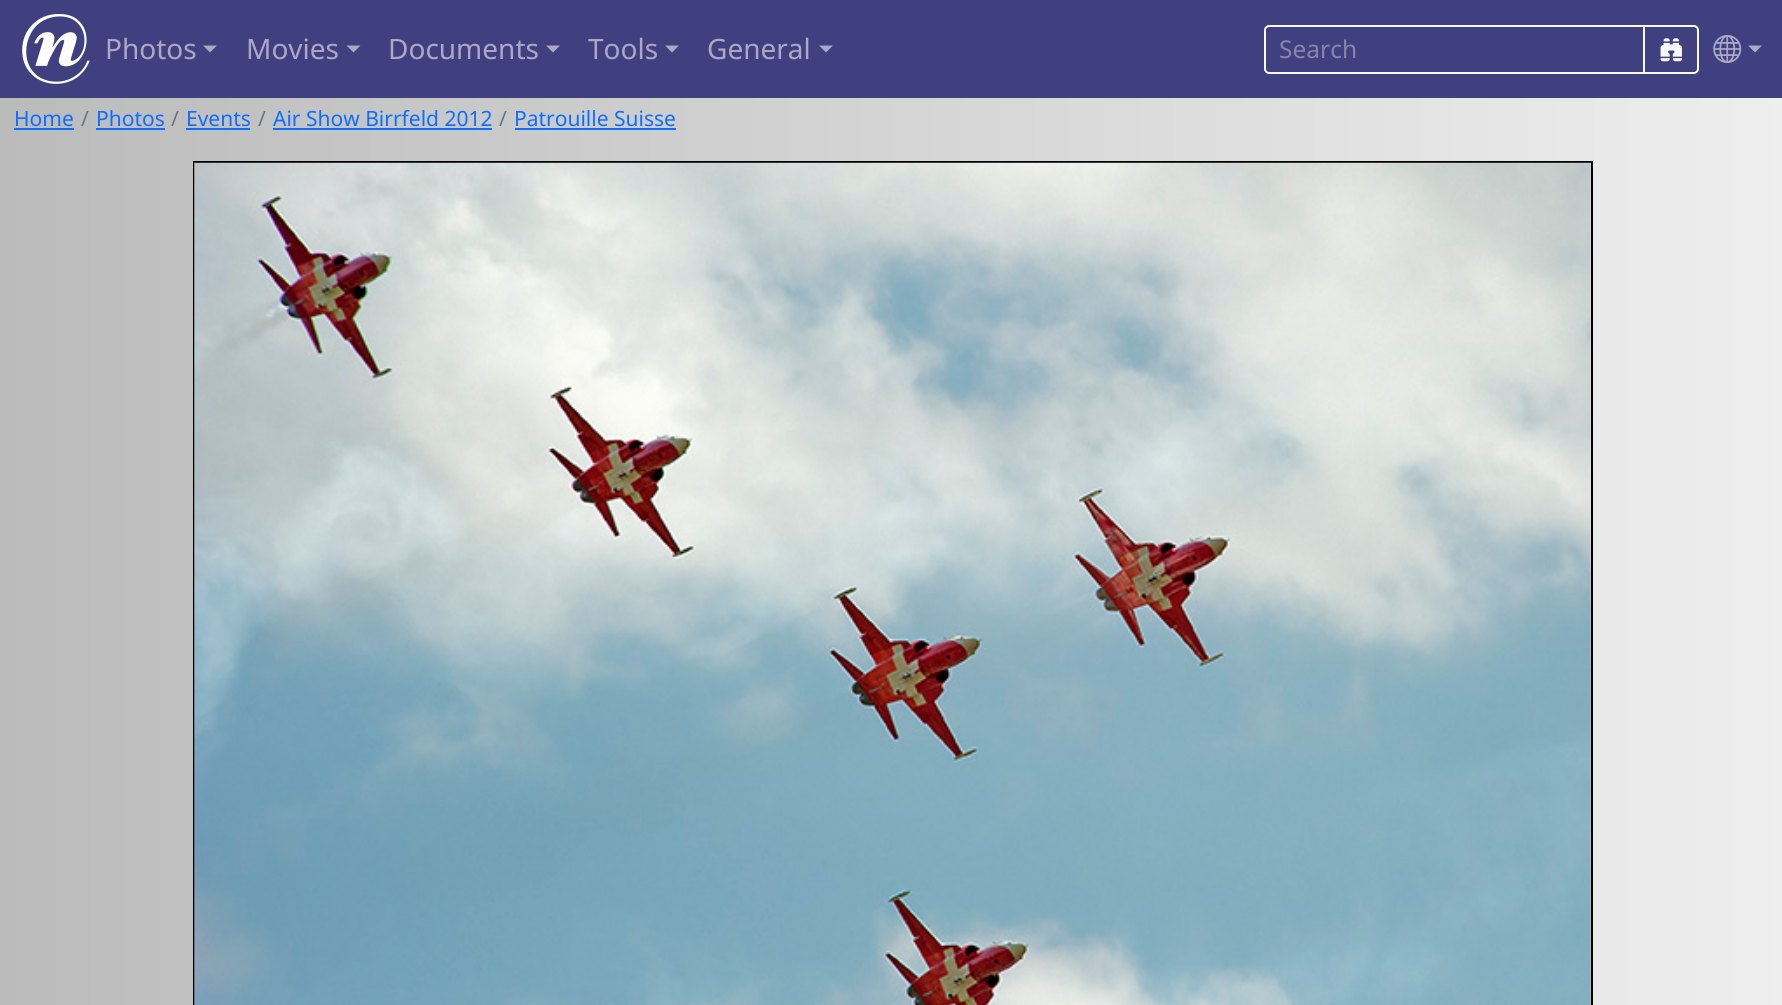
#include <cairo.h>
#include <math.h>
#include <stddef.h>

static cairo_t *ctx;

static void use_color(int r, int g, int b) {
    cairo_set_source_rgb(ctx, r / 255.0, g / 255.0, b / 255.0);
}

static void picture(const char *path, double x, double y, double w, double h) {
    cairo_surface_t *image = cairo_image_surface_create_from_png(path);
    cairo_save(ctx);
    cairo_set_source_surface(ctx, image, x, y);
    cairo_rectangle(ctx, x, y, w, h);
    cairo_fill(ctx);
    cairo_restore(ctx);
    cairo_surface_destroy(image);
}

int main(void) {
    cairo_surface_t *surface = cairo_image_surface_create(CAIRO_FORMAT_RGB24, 1782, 1005);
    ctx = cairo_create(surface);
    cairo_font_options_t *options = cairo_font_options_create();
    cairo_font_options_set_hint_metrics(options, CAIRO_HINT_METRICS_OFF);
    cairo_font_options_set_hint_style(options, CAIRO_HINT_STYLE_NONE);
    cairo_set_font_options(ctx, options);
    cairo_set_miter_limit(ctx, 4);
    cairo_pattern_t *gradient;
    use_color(255, 255, 255);
    cairo_paint(ctx);
    gradient = cairo_pattern_create_linear(0, 663, 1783, 663);
    cairo_pattern_add_color_stop_rgba(gradient, 0, 0.733, 0.733, 0.733, 1);
    cairo_pattern_add_color_stop_rgba(gradient, 1, 0.933, 0.933, 0.933, 1);
    cairo_set_source(ctx, gradient);
    cairo_pattern_destroy(gradient);
    cairo_rectangle(ctx, 0, 98, 1782, 907);
    cairo_fill(ctx);
    use_color(64, 64, 128);
    cairo_rectangle(ctx, 0, 0, 1782, 98);
    cairo_fill(ctx);
    picture("img1.png", 22, 14, 68, 70);
    cairo_select_font_face(ctx, "Noto Sans", CAIRO_FONT_SLANT_NORMAL, CAIRO_FONT_WEIGHT_NORMAL);
    cairo_set_font_size(ctx, 28);
    use_color(169, 169, 198);
    cairo_move_to(ctx, 105, 59);
    cairo_show_text(ctx, "Photos");
    cairo_new_path(ctx);
    cairo_move_to(ctx, 203, 45.5);
    cairo_line_to(ctx, 217, 45.5);
    cairo_line_to(ctx, 210, 52.5);
    cairo_close_path(ctx);
    cairo_fill(ctx);
    cairo_move_to(ctx, 246, 59);
    cairo_show_text(ctx, "Movies");
    cairo_new_path(ctx);
    cairo_move_to(ctx, 346.5, 45.5);
    cairo_line_to(ctx, 360.5, 45.5);
    cairo_line_to(ctx, 353.5, 52.5);
    cairo_close_path(ctx);
    cairo_fill(ctx);
    cairo_move_to(ctx, 388, 59);
    cairo_show_text(ctx, "Documents");
    cairo_new_path(ctx);
    cairo_move_to(ctx, 546, 45.5);
    cairo_line_to(ctx, 560, 45.5);
    cairo_line_to(ctx, 553, 52.5);
    cairo_close_path(ctx);
    cairo_fill(ctx);
    cairo_move_to(ctx, 588, 59);
    cairo_show_text(ctx, "Tools");
    cairo_new_path(ctx);
    cairo_move_to(ctx, 665, 45.5);
    cairo_line_to(ctx, 679, 45.5);
    cairo_line_to(ctx, 672, 52.5);
    cairo_close_path(ctx);
    cairo_fill(ctx);
    cairo_move_to(ctx, 707, 59);
    cairo_show_text(ctx, "General");
    cairo_new_path(ctx);
    cairo_move_to(ctx, 819, 45.5);
    cairo_line_to(ctx, 833, 45.5);
    cairo_line_to(ctx, 826, 52.5);
    cairo_close_path(ctx);
    cairo_fill(ctx);
    cairo_new_path(ctx);
    cairo_move_to(ctx, 1269, 26);
    cairo_line_to(ctx, 1644, 26);
    cairo_line_to(ctx, 1644, 73);
    cairo_line_to(ctx, 1269, 73);
    cairo_curve_to(ctx, 1267, 73, 1265, 71, 1265, 69);
    cairo_line_to(ctx, 1265, 30);
    cairo_curve_to(ctx, 1265, 28, 1267, 26, 1269, 26);
    cairo_close_path(ctx);
    use_color(248, 249, 250);
    cairo_stroke(ctx);
    cairo_set_font_size(ctx, 24.5);
    use_color(134, 134, 166);
    cairo_move_to(ctx, 1279, 58);
    cairo_show_text(ctx, "Search");
    cairo_new_path(ctx);
    cairo_move_to(ctx, 1644, 26);
    cairo_line_to(ctx, 1694, 26);
    cairo_curve_to(ctx, 1696, 26, 1698, 28, 1698, 30);
    cairo_line_to(ctx, 1698, 69);
    cairo_curve_to(ctx, 1698, 71, 1696, 73, 1694, 73);
    cairo_line_to(ctx, 1644, 73);
    cairo_close_path(ctx);
    use_color(248, 249, 250);
    cairo_stroke(ctx);
    picture("img2.png", 1660, 38, 22, 24);
    picture("img3.png", 1713, 35, 29, 28);
    use_color(169, 169, 198);
    cairo_new_path(ctx);
    cairo_move_to(ctx, 1748, 45.5);
    cairo_line_to(ctx, 1762, 45.5);
    cairo_line_to(ctx, 1755, 52.5);
    cairo_close_path(ctx);
    cairo_fill(ctx);
    cairo_set_font_size(ctx, 21);
    use_color(13, 110, 253);
    cairo_move_to(ctx, 14, 126);
    cairo_show_text(ctx, "Home");
    cairo_rectangle(ctx, 14, 128, 60, 2);
    cairo_fill(ctx);
    use_color(108, 117, 125);
    cairo_move_to(ctx, 81, 126);
    cairo_show_text(ctx, "/");
    use_color(13, 110, 253);
    cairo_move_to(ctx, 96, 126);
    cairo_show_text(ctx, "Photos");
    cairo_rectangle(ctx, 96, 128, 69, 2);
    cairo_fill(ctx);
    use_color(108, 117, 125);
    cairo_move_to(ctx, 171, 126);
    cairo_show_text(ctx, "/");
    use_color(13, 110, 253);
    cairo_move_to(ctx, 186, 126);
    cairo_show_text(ctx, "Events");
    cairo_rectangle(ctx, 186, 128, 64, 2);
    cairo_fill(ctx);
    use_color(108, 117, 125);
    cairo_move_to(ctx, 258, 126);
    cairo_show_text(ctx, "/");
    use_color(13, 110, 253);
    cairo_move_to(ctx, 273, 126);
    cairo_show_text(ctx, "Air Show Birrfeld 2012");
    cairo_rectangle(ctx, 273, 128, 219, 2);
    cairo_fill(ctx);
    use_color(108, 117, 125);
    cairo_move_to(ctx, 499, 126);
    cairo_show_text(ctx, "/");
    use_color(13, 110, 253);
    cairo_move_to(ctx, 514, 126);
    cairo_show_text(ctx, "Patrouille Suisse");
    cairo_rectangle(ctx, 515, 128, 161, 2);
    cairo_fill(ctx);
    cairo_rectangle(ctx, 194, 162, 1398, 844);
    use_color(0, 0, 0);
    cairo_stroke(ctx);
    picture("img4.png", 194, 162, 1397, 843);
    cairo_surface_write_to_png(surface, "result.png");
    cairo_font_options_destroy(options);
    cairo_destroy(ctx);
    cairo_surface_destroy(surface);
    return 0;
}
